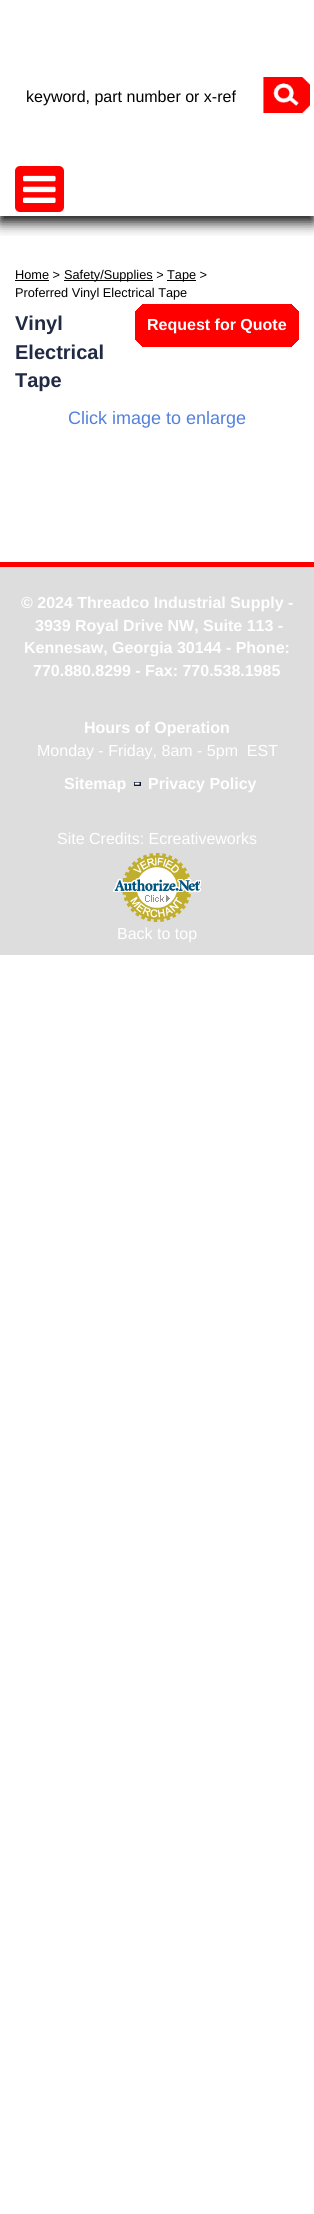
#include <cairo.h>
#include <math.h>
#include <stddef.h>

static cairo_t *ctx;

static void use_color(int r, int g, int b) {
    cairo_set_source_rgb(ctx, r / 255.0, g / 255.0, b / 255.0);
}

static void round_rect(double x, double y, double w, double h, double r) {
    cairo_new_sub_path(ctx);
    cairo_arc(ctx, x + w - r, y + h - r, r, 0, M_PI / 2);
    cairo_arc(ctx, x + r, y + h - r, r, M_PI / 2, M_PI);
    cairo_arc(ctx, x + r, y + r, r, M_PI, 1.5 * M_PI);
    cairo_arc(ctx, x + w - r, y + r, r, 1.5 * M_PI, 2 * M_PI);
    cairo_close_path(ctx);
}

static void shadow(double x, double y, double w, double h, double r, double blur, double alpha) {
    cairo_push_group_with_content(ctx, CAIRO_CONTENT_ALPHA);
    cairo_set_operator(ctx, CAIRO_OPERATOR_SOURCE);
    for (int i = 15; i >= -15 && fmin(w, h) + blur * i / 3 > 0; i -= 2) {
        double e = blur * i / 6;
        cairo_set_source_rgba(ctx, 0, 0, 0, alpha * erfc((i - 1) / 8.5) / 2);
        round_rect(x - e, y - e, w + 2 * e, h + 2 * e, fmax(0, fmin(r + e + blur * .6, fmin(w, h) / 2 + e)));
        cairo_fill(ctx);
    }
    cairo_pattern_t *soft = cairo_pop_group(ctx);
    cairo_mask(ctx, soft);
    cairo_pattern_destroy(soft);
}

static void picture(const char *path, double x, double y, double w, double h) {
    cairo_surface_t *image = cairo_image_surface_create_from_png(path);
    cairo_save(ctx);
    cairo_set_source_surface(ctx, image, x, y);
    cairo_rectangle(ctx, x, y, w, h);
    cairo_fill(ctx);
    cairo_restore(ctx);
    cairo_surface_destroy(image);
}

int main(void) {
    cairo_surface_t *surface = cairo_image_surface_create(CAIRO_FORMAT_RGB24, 314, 2214);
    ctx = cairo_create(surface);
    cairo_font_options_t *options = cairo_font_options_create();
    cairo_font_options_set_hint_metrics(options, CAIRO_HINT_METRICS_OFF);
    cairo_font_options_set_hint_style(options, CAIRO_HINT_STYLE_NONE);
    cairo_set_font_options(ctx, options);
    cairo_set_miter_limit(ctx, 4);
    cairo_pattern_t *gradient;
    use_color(255, 255, 255);
    cairo_paint(ctx);
    cairo_save(ctx);
    cairo_rectangle(ctx, 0, 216, 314, 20);
    cairo_clip(ctx);
    use_color(0, 0, 0);
    shadow(0, 6, 314, 216, 0, 7, 1);
    cairo_restore(ctx);
    picture("img1.png", 263, 77, 47, 36);
    cairo_select_font_face(ctx, "Liberation Sans", CAIRO_FONT_SLANT_NORMAL, CAIRO_FONT_WEIGHT_NORMAL);
    cairo_set_font_size(ctx, 16);
    use_color(0, 0, 0);
    cairo_move_to(ctx, 26, 102);
    cairo_show_text(ctx, "keyword, part number or x-ref");
    use_color(255, 0, 0);
    round_rect(15, 166, 49, 46, 5);
    cairo_fill(ctx);
    picture("img2.png", 23, 175, 33, 28);
    cairo_set_font_size(ctx, 12.75);
    use_color(0, 0, 0);
    cairo_move_to(ctx, 15, 279);
    cairo_show_text(ctx, "Home >");
    cairo_rectangle(ctx, 15, 280, 34, 1);
    cairo_fill(ctx);
    cairo_rectangle(ctx, 64, 280, 89, 1);
    cairo_fill(ctx);
    cairo_move_to(ctx, 64, 279);
    cairo_show_text(ctx, "Safety/Supplies >");
    cairo_rectangle(ctx, 167, 280, 29, 1);
    cairo_fill(ctx);
    cairo_move_to(ctx, 167, 279);
    cairo_show_text(ctx, "Tape >");
    cairo_move_to(ctx, 15, 297);
    cairo_show_text(ctx, "Proferred Vinyl Electrical Tape");
    cairo_select_font_face(ctx, "Liberation Sans", CAIRO_FONT_SLANT_NORMAL, CAIRO_FONT_WEIGHT_BOLD);
    cairo_set_font_size(ctx, 20);
    use_color(33, 42, 67);
    cairo_move_to(ctx, 15, 330);
    cairo_show_text(ctx, "Vinyl");
    cairo_move_to(ctx, 15, 359);
    cairo_show_text(ctx, "Electrical");
    cairo_move_to(ctx, 15, 387);
    cairo_show_text(ctx, "Tape");
    gradient = cairo_pattern_create_linear(151, 363, 205, 309);
    cairo_pattern_add_color_stop_rgba(gradient, 0.07, 1, 1, 1, 1);
    cairo_pattern_add_color_stop_rgba(gradient, 0.07, 1, 0, 0, 1);
    cairo_set_source(ctx, gradient);
    cairo_pattern_destroy(gradient);
    cairo_new_path(ctx);
    cairo_move_to(ctx, 135, 325);
    cairo_line_to(ctx, 220, 325);
    cairo_line_to(ctx, 220, 347);
    cairo_line_to(ctx, 139, 347);
    cairo_curve_to(ctx, 137, 347, 135, 345, 135, 343);
    cairo_close_path(ctx);
    cairo_fill(ctx);
    gradient = cairo_pattern_create_linear(283, 363, 229, 309);
    cairo_pattern_add_color_stop_rgba(gradient, 0.07, 1, 0, 0, 0);
    cairo_pattern_add_color_stop_rgba(gradient, 0.07, 1, 0, 0, 1);
    cairo_set_source(ctx, gradient);
    cairo_pattern_destroy(gradient);
    cairo_rectangle(ctx, 220, 326, 79, 21);
    cairo_fill(ctx);
    gradient = cairo_pattern_create_linear(283, 288, 229, 342);
    cairo_pattern_add_color_stop_rgba(gradient, 0.07, 1, 0, 0, 0);
    cairo_pattern_add_color_stop_rgba(gradient, 0.07, 1, 0, 0, 1);
    cairo_set_source(ctx, gradient);
    cairo_pattern_destroy(gradient);
    cairo_rectangle(ctx, 220, 304, 79, 22);
    cairo_fill(ctx);
    gradient = cairo_pattern_create_linear(151, 288, 205, 342);
    cairo_pattern_add_color_stop_rgba(gradient, 0.07, 1, 0, 0, 0);
    cairo_pattern_add_color_stop_rgba(gradient, 0.07, 1, 0, 0, 1);
    cairo_set_source(ctx, gradient);
    cairo_pattern_destroy(gradient);
    cairo_rectangle(ctx, 135, 304, 85, 21);
    cairo_fill(ctx);
    cairo_set_font_size(ctx, 16);
    use_color(255, 255, 255);
    cairo_move_to(ctx, 147, 330);
    cairo_show_text(ctx, "Request for Quote");
    cairo_select_font_face(ctx, "Liberation Sans", CAIRO_FONT_SLANT_NORMAL, CAIRO_FONT_WEIGHT_NORMAL);
    cairo_set_font_size(ctx, 18);
    use_color(82, 128, 221);
    cairo_move_to(ctx, 68, 424);
    cairo_show_text(ctx, "Click image to enlarge");
    use_color(221, 221, 221);
    cairo_rectangle(ctx, 0, 567, 314, 388);
    cairo_fill(ctx);
    use_color(255, 0, 0);
    cairo_rectangle(ctx, 0, 562, 314, 5);
    cairo_fill(ctx);
    cairo_select_font_face(ctx, "Liberation Sans", CAIRO_FONT_SLANT_NORMAL, CAIRO_FONT_WEIGHT_BOLD);
    cairo_set_font_size(ctx, 16);
    use_color(255, 255, 255);
    cairo_move_to(ctx, 21, 608);
    cairo_show_text(ctx, "© 2024 Threadco Industrial Supply -");
    cairo_move_to(ctx, 35, 631);
    cairo_show_text(ctx, "3939 Royal Drive NW, Suite 113 -");
    cairo_move_to(ctx, 24, 653);
    cairo_show_text(ctx, "Kennesaw, Georgia 30144 - Phone:");
    cairo_move_to(ctx, 33, 676);
    cairo_show_text(ctx, "770.880.8299 - Fax: 770.538.1985");
    cairo_move_to(ctx, 84, 733);
    cairo_show_text(ctx, "Hours of Operation");
    cairo_select_font_face(ctx, "Liberation Sans", CAIRO_FONT_SLANT_NORMAL, CAIRO_FONT_WEIGHT_NORMAL);
    cairo_move_to(ctx, 37, 756);
    cairo_show_text(ctx, "Monday - Friday, 8am - 5pm  EST");
    cairo_select_font_face(ctx, "Liberation Sans", CAIRO_FONT_SLANT_NORMAL, CAIRO_FONT_WEIGHT_BOLD);
    cairo_move_to(ctx, 64, 789);
    cairo_show_text(ctx, "Sitemap");
    picture("img3.png", 134, 782, 7, 4);
    cairo_move_to(ctx, 148, 789);
    cairo_show_text(ctx, "Privacy Policy");
    cairo_select_font_face(ctx, "Liberation Sans", CAIRO_FONT_SLANT_NORMAL, CAIRO_FONT_WEIGHT_NORMAL);
    cairo_move_to(ctx, 57, 844);
    cairo_show_text(ctx, "Site Credits: Ecreativeworks");
    picture("img4.png", 113, 853, 88, 69);
    cairo_move_to(ctx, 117, 939);
    cairo_show_text(ctx, "Back to top");
    cairo_surface_write_to_png(surface, "result.png");
    cairo_font_options_destroy(options);
    cairo_destroy(ctx);
    cairo_surface_destroy(surface);
    return 0;
}
